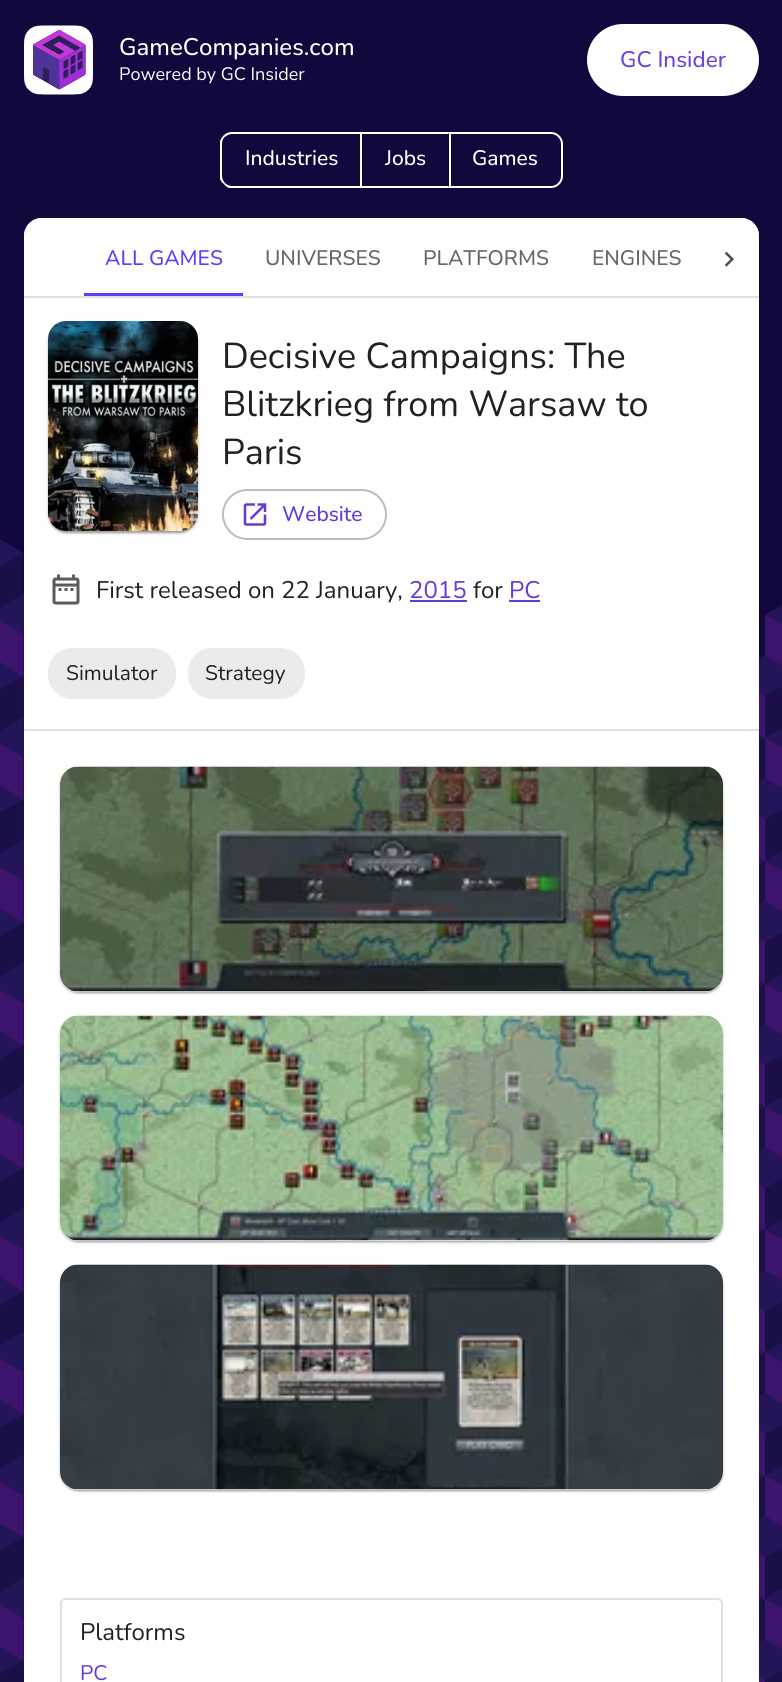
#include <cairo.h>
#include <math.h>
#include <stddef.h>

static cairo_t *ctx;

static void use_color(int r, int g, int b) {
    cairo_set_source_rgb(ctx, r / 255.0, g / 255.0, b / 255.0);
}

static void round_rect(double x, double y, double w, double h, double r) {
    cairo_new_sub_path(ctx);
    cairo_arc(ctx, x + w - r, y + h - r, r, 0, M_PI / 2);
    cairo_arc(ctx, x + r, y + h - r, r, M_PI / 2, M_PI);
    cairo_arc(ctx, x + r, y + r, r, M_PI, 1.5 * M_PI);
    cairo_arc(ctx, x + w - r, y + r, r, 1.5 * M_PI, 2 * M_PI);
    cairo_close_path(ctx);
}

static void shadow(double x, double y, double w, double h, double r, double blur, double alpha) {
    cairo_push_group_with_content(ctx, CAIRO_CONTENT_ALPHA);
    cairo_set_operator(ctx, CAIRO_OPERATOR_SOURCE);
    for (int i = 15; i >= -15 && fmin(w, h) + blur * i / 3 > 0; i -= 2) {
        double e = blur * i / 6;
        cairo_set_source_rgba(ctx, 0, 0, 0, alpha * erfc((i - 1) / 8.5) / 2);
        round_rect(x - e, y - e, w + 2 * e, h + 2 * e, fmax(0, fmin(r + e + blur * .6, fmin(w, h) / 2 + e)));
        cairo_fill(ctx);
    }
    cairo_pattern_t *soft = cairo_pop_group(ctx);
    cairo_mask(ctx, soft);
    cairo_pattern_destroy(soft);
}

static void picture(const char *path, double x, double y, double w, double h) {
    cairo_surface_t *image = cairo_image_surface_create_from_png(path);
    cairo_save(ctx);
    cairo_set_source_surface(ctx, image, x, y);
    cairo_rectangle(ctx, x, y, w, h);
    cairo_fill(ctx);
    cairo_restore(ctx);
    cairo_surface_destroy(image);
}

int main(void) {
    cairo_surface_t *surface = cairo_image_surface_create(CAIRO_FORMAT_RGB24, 782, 1682);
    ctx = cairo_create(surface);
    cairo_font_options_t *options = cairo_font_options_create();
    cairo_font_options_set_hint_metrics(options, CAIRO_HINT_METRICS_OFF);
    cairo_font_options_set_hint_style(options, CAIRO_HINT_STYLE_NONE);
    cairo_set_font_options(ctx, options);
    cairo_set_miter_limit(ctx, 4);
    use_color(255, 255, 255);
    cairo_paint(ctx);
    picture("img1.png", 0, 0, 782, 1682);
    picture("img2.png", 24, 25, 69, 70);
    cairo_select_font_face(ctx, "Nunito Medium", CAIRO_FONT_SLANT_NORMAL, CAIRO_FONT_WEIGHT_NORMAL);
    cairo_set_font_size(ctx, 24);
    use_color(255, 255, 255);
    cairo_move_to(ctx, 119, 55);
    cairo_show_text(ctx, "GameCompanies.com");
    cairo_select_font_face(ctx, "Nunito", CAIRO_FONT_SLANT_NORMAL, CAIRO_FONT_WEIGHT_NORMAL);
    cairo_set_font_size(ctx, 18);
    cairo_move_to(ctx, 119, 80);
    cairo_show_text(ctx, "Powered by GC Insider");
    round_rect(587, 24, 172, 72, 36);
    cairo_fill(ctx);
    cairo_select_font_face(ctx, "Nunito Medium", CAIRO_FONT_SLANT_NORMAL, CAIRO_FONT_WEIGHT_NORMAL);
    cairo_set_font_size(ctx, 22.5);
    use_color(107, 69, 219);
    cairo_move_to(ctx, 620, 67);
    cairo_show_text(ctx, "GC Insider");
    use_color(255, 255, 255);
    cairo_new_path(ctx);
    cairo_move_to(ctx, 232, 132);
    cairo_curve_to(ctx, 229, 132, 226, 133, 224, 135);
    cairo_line_to(ctx, 225, 137);
    cairo_curve_to(ctx, 227, 135, 230, 134, 232, 134);
    cairo_line_to(ctx, 360, 134);
    cairo_line_to(ctx, 362, 132);
    cairo_close_path(ctx);
    cairo_fill(ctx);
    cairo_new_path(ctx);
    cairo_move_to(ctx, 362, 188);
    cairo_line_to(ctx, 229, 188);
    cairo_curve_to(ctx, 227, 187, 225, 186, 224, 184);
    cairo_line_to(ctx, 225, 183);
    cairo_curve_to(ctx, 227, 185, 230, 186, 232, 186);
    cairo_line_to(ctx, 360, 186);
    cairo_close_path(ctx);
    cairo_fill(ctx);
    cairo_new_path(ctx);
    cairo_move_to(ctx, 220, 141);
    cairo_curve_to(ctx, 221, 139, 222, 137, 224, 135);
    cairo_line_to(ctx, 225, 137);
    cairo_curve_to(ctx, 223, 138, 222, 141, 222, 144);
    cairo_line_to(ctx, 222, 176);
    cairo_curve_to(ctx, 222, 178, 223, 181, 225, 183);
    cairo_line_to(ctx, 224, 184);
    cairo_curve_to(ctx, 222, 183, 221, 181, 220, 179);
    cairo_close_path(ctx);
    cairo_fill(ctx);
    cairo_set_font_size(ctx, 21);
    cairo_move_to(ctx, 245, 165);
    cairo_show_text(ctx, "Industries");
    cairo_new_path(ctx);
    cairo_move_to(ctx, 360, 132);
    cairo_line_to(ctx, 450, 132);
    cairo_line_to(ctx, 448, 134);
    cairo_line_to(ctx, 362, 134);
    cairo_close_path(ctx);
    cairo_fill(ctx);
    cairo_new_path(ctx);
    cairo_move_to(ctx, 450, 188);
    cairo_line_to(ctx, 360, 188);
    cairo_line_to(ctx, 362, 186);
    cairo_line_to(ctx, 448, 186);
    cairo_close_path(ctx);
    cairo_fill(ctx);
    cairo_rectangle(ctx, 360, 132, 2, 56);
    cairo_fill(ctx);
    cairo_move_to(ctx, 385, 165);
    cairo_show_text(ctx, "Jobs");
    cairo_new_path(ctx);
    cairo_move_to(ctx, 450, 133);
    cairo_line_to(ctx, 551, 133);
    cairo_curve_to(ctx, 557, 133, 562, 138, 562, 144);
    cairo_line_to(ctx, 562, 176);
    cairo_curve_to(ctx, 562, 182, 557, 187, 551, 187);
    cairo_line_to(ctx, 450, 187);
    cairo_close_path(ctx);
    cairo_stroke(ctx);
    cairo_move_to(ctx, 472, 165);
    cairo_show_text(ctx, "Games");
    use_color(0, 0, 0);
    shadow(24, 219, 735, 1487, 18, 2, 0.12);
    shadow(24, 219, 735, 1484, 18, 1, 0.14);
    use_color(255, 255, 255);
    round_rect(24, 218, 735, 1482, 18);
    cairo_fill(ctx);
    cairo_new_path(ctx);
    cairo_move_to(ctx, 42, 218);
    cairo_line_to(ctx, 741, 218);
    cairo_curve_to(ctx, 751, 218, 759, 226, 759, 236);
    cairo_line_to(ctx, 759, 297);
    cairo_line_to(ctx, 24, 297);
    cairo_line_to(ctx, 24, 236);
    cairo_curve_to(ctx, 24, 226, 32, 218, 42, 218);
    cairo_close_path(ctx);
    cairo_fill(ctx);
    use_color(92, 62, 255);
    cairo_move_to(ctx, 105, 265);
    cairo_show_text(ctx, "ALL GAMES");
    use_color(102, 102, 102);
    cairo_move_to(ctx, 265, 265);
    cairo_show_text(ctx, "UNIVERSES");
    cairo_move_to(ctx, 423, 265);
    cairo_show_text(ctx, "PLATFORMS");
    cairo_move_to(ctx, 592, 265);
    cairo_show_text(ctx, "ENGINES");
    use_color(92, 62, 255);
    cairo_rectangle(ctx, 84, 293, 159, 3);
    cairo_fill(ctx);
    picture("img3.png", 724, 251, 10, 16);
    use_color(224, 224, 224);
    cairo_rectangle(ctx, 24, 296, 735, 2);
    cairo_fill(ctx);
    use_color(0, 0, 0);
    shadow(48, 323, 150, 210, 18, 2, 0.12);
    shadow(48, 323, 150, 210, 18, 1, 0.14);
    shadow(50, 326, 147, 207, 17, 1, 0.2);
    picture("img4.png", 48, 321, 150, 210);
    cairo_select_font_face(ctx, "Nunito", CAIRO_FONT_SLANT_NORMAL, CAIRO_FONT_WEIGHT_NORMAL);
    cairo_set_font_size(ctx, 36);
    use_color(33, 33, 33);
    cairo_move_to(ctx, 222, 368);
    cairo_show_text(ctx, "Decisive Campaigns: The");
    cairo_move_to(ctx, 222, 416);
    cairo_show_text(ctx, "Blitzkrieg from Warsaw to");
    cairo_move_to(ctx, 222, 464);
    cairo_show_text(ctx, "Paris");
    round_rect(223, 490, 163, 49, 24.5);
    use_color(189, 189, 189);
    cairo_stroke(ctx);
    picture("img5.png", 243, 503, 24, 23);
    cairo_select_font_face(ctx, "Nunito Medium", CAIRO_FONT_SLANT_NORMAL, CAIRO_FONT_WEIGHT_NORMAL);
    cairo_set_font_size(ctx, 21);
    use_color(98, 58, 214);
    cairo_move_to(ctx, 282, 521);
    cairo_show_text(ctx, "Website");
    picture("img6.png", 52, 574, 28, 31);
    cairo_select_font_face(ctx, "Nunito", CAIRO_FONT_SLANT_NORMAL, CAIRO_FONT_WEIGHT_NORMAL);
    cairo_set_font_size(ctx, 24);
    use_color(33, 33, 33);
    cairo_move_to(ctx, 96, 598);
    cairo_show_text(ctx, "First released on 22 January,");
    use_color(98, 58, 214);
    cairo_move_to(ctx, 409, 598);
    cairo_show_text(ctx, "2015");
    cairo_rectangle(ctx, 410, 600, 57, 2);
    cairo_fill(ctx);
    use_color(33, 33, 33);
    cairo_move_to(ctx, 473, 598);
    cairo_show_text(ctx, "for");
    use_color(98, 58, 214);
    cairo_move_to(ctx, 509, 598);
    cairo_show_text(ctx, "PC");
    cairo_rectangle(ctx, 509, 600, 31, 2);
    cairo_fill(ctx);
    use_color(235, 235, 235);
    round_rect(48, 648, 128, 51, 24);
    cairo_fill(ctx);
    cairo_set_font_size(ctx, 21);
    use_color(33, 33, 33);
    cairo_move_to(ctx, 66, 680);
    cairo_show_text(ctx, "Simulator");
    use_color(235, 235, 235);
    round_rect(188, 648, 117, 51, 24);
    cairo_fill(ctx);
    use_color(33, 33, 33);
    cairo_move_to(ctx, 205, 680);
    cairo_show_text(ctx, "Strategy");
    use_color(224, 224, 224);
    cairo_rectangle(ctx, 24, 729, 735, 2);
    cairo_fill(ctx);
    use_color(0, 0, 0);
    shadow(60, 768, 663, 225, 18, 2, 0.12);
    shadow(60, 768, 663, 225, 18, 1, 0.14);
    shadow(62, 771, 660, 222, 17, 1, 0.2);
    use_color(255, 255, 255);
    round_rect(60, 767, 663, 225, 18);
    cairo_fill(ctx);
    picture("img7.png", 60, 766, 663, 226);
    use_color(0, 0, 0);
    shadow(60, 1017, 663, 225, 18, 2, 0.12);
    shadow(60, 1017, 663, 225, 18, 1, 0.14);
    shadow(62, 1020, 660, 222, 17, 1, 0.2);
    use_color(255, 255, 255);
    round_rect(60, 1016, 663, 225, 18);
    cairo_fill(ctx);
    picture("img8.png", 60, 1015, 663, 226);
    use_color(0, 0, 0);
    shadow(60, 1266, 663, 225, 18, 2, 0.12);
    shadow(60, 1266, 663, 225, 18, 1, 0.14);
    shadow(62, 1269, 660, 222, 17, 1, 0.2);
    use_color(255, 255, 255);
    round_rect(60, 1265, 663, 225, 18);
    cairo_fill(ctx);
    picture("img9.png", 60, 1264, 663, 226);
    cairo_new_path(ctx);
    cairo_move_to(ctx, 66, 1599);
    cairo_line_to(ctx, 717, 1599);
    cairo_curve_to(ctx, 720, 1599, 722, 1601, 722, 1604);
    cairo_line_to(ctx, 722, 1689);
    cairo_line_to(ctx, 61, 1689);
    cairo_line_to(ctx, 61, 1604);
    cairo_curve_to(ctx, 61, 1601, 63, 1599, 66, 1599);
    cairo_close_path(ctx);
    use_color(224, 224, 224);
    cairo_stroke(ctx);
    cairo_set_font_size(ctx, 24);
    use_color(33, 33, 33);
    cairo_move_to(ctx, 80, 1640);
    cairo_show_text(ctx, "Platforms");
    cairo_set_font_size(ctx, 21);
    use_color(98, 58, 214);
    cairo_move_to(ctx, 80, 1680);
    cairo_show_text(ctx, "PC");
    cairo_surface_write_to_png(surface, "result.png");
    cairo_font_options_destroy(options);
    cairo_destroy(ctx);
    cairo_surface_destroy(surface);
    return 0;
}
